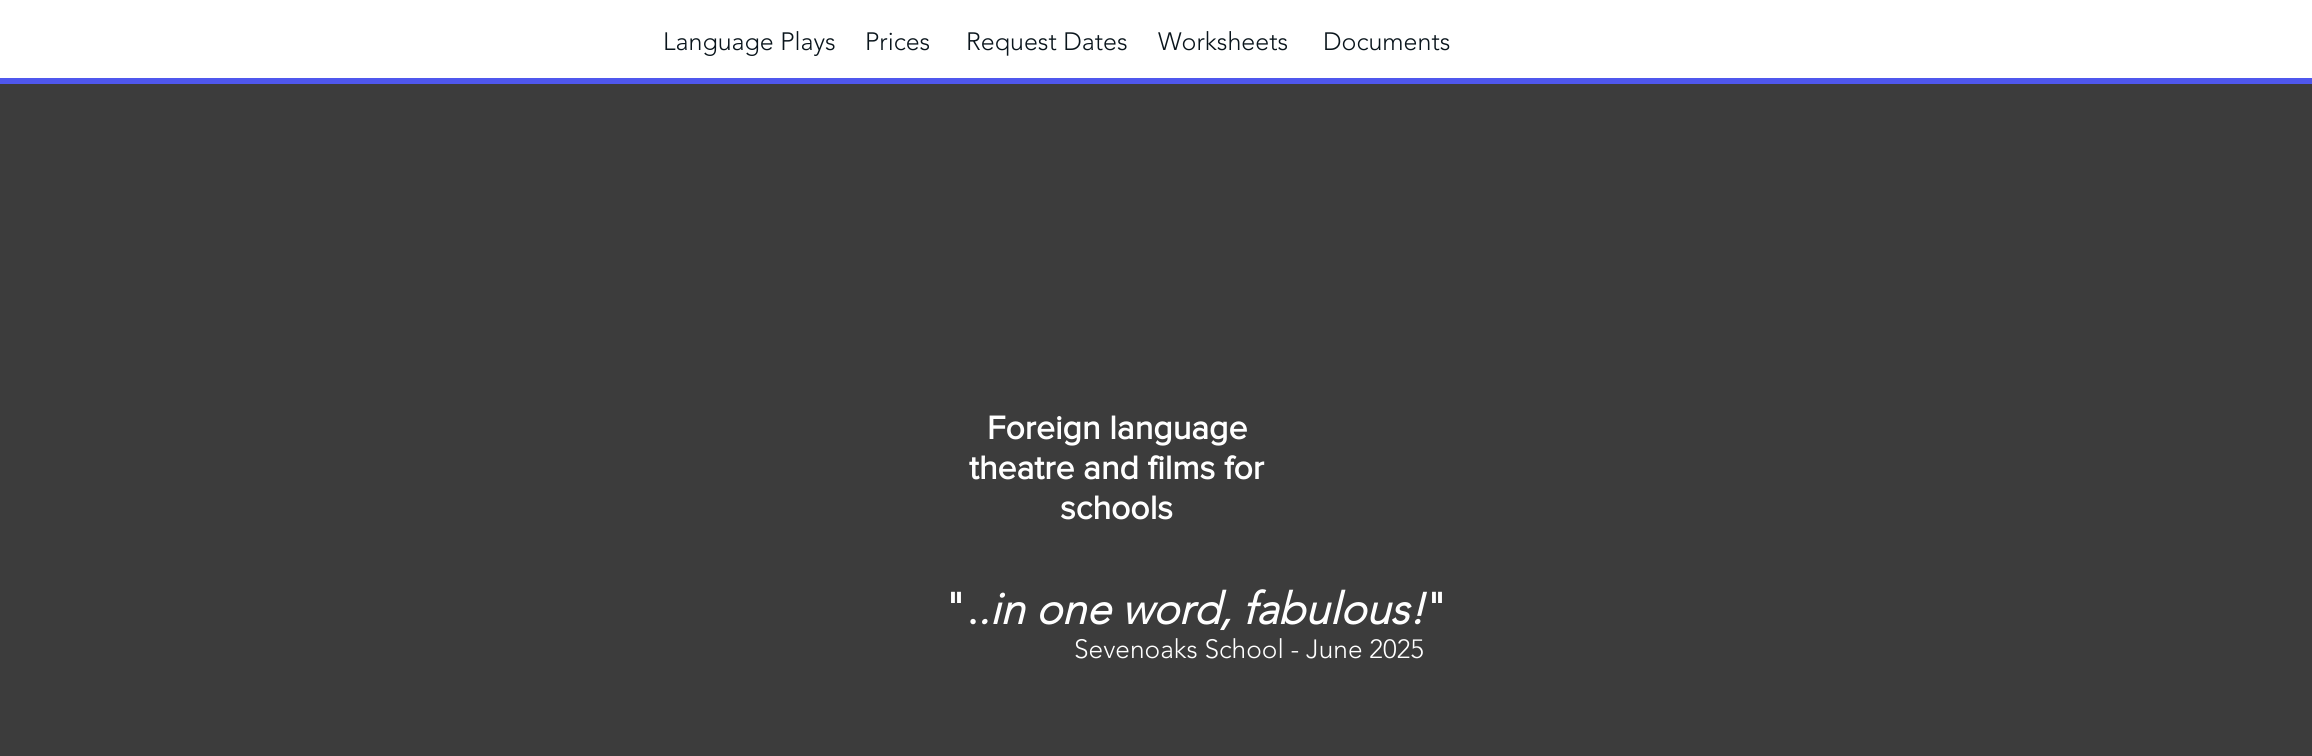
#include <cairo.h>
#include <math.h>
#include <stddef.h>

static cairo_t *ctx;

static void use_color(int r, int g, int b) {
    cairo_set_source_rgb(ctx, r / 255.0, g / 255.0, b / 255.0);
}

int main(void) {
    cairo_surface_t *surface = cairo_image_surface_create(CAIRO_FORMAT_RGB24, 2312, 756);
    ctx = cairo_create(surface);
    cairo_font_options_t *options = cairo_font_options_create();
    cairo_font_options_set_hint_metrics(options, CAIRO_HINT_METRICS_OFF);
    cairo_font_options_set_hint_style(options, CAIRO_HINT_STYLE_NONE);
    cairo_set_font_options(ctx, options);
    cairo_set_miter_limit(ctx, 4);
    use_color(255, 255, 255);
    cairo_paint(ctx);
    cairo_select_font_face(ctx, "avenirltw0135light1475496 Light", CAIRO_FONT_SLANT_NORMAL, CAIRO_FONT_WEIGHT_NORMAL);
    cairo_set_font_size(ctx, 25);
    use_color(10, 21, 28);
    cairo_move_to(ctx, 663, 50);
    cairo_show_text(ctx, "Language Plays");
    cairo_move_to(ctx, 865, 50);
    cairo_show_text(ctx, "Prices");
    cairo_move_to(ctx, 966, 50);
    cairo_show_text(ctx, "Request Dates");
    cairo_move_to(ctx, 1158, 50);
    cairo_show_text(ctx, "Worksheets");
    cairo_move_to(ctx, 1323, 50);
    cairo_show_text(ctx, "Documents");
    use_color(79, 87, 237);
    cairo_rectangle(ctx, 0, 78, 2312, 6);
    cairo_fill(ctx);
    use_color(60, 60, 60);
    cairo_rectangle(ctx, 0, 84, 2312, 672);
    cairo_fill(ctx);
    cairo_select_font_face(ctx, "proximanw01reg", CAIRO_FONT_SLANT_NORMAL, CAIRO_FONT_WEIGHT_BOLD);
    cairo_set_font_size(ctx, 33.75);
    use_color(255, 255, 255);
    cairo_move_to(ctx, 987, 439);
    cairo_show_text(ctx, "Foreign language");
    cairo_move_to(ctx, 969, 479);
    cairo_show_text(ctx, "theatre and films for");
    cairo_move_to(ctx, 1060, 519);
    cairo_show_text(ctx, "schools");
    cairo_select_font_face(ctx, "avenirltw0135light1475496", CAIRO_FONT_SLANT_NORMAL, CAIRO_FONT_WEIGHT_BOLD);
    cairo_set_font_size(ctx, 43.75);
    cairo_move_to(ctx, 944, 624);
    cairo_show_text(ctx, "\".");
    cairo_select_font_face(ctx, "avenirltw0135light1475496", CAIRO_FONT_SLANT_ITALIC, CAIRO_FONT_WEIGHT_BOLD);
    cairo_move_to(ctx, 978, 624);
    cairo_show_text(ctx, ".in one word, fabulous!");
    cairo_select_font_face(ctx, "avenirltw0135light1475496", CAIRO_FONT_SLANT_NORMAL, CAIRO_FONT_WEIGHT_BOLD);
    cairo_move_to(ctx, 1425, 624);
    cairo_show_text(ctx, "\"");
    cairo_select_font_face(ctx, "avenirltw0135light1475496 Light", CAIRO_FONT_SLANT_NORMAL, CAIRO_FONT_WEIGHT_NORMAL);
    cairo_set_font_size(ctx, 26.25);
    cairo_move_to(ctx, 1074, 658);
    cairo_show_text(ctx, "Sevenoaks School - June 2025");
    cairo_surface_write_to_png(surface, "result.png");
    cairo_font_options_destroy(options);
    cairo_destroy(ctx);
    cairo_surface_destroy(surface);
    return 0;
}
